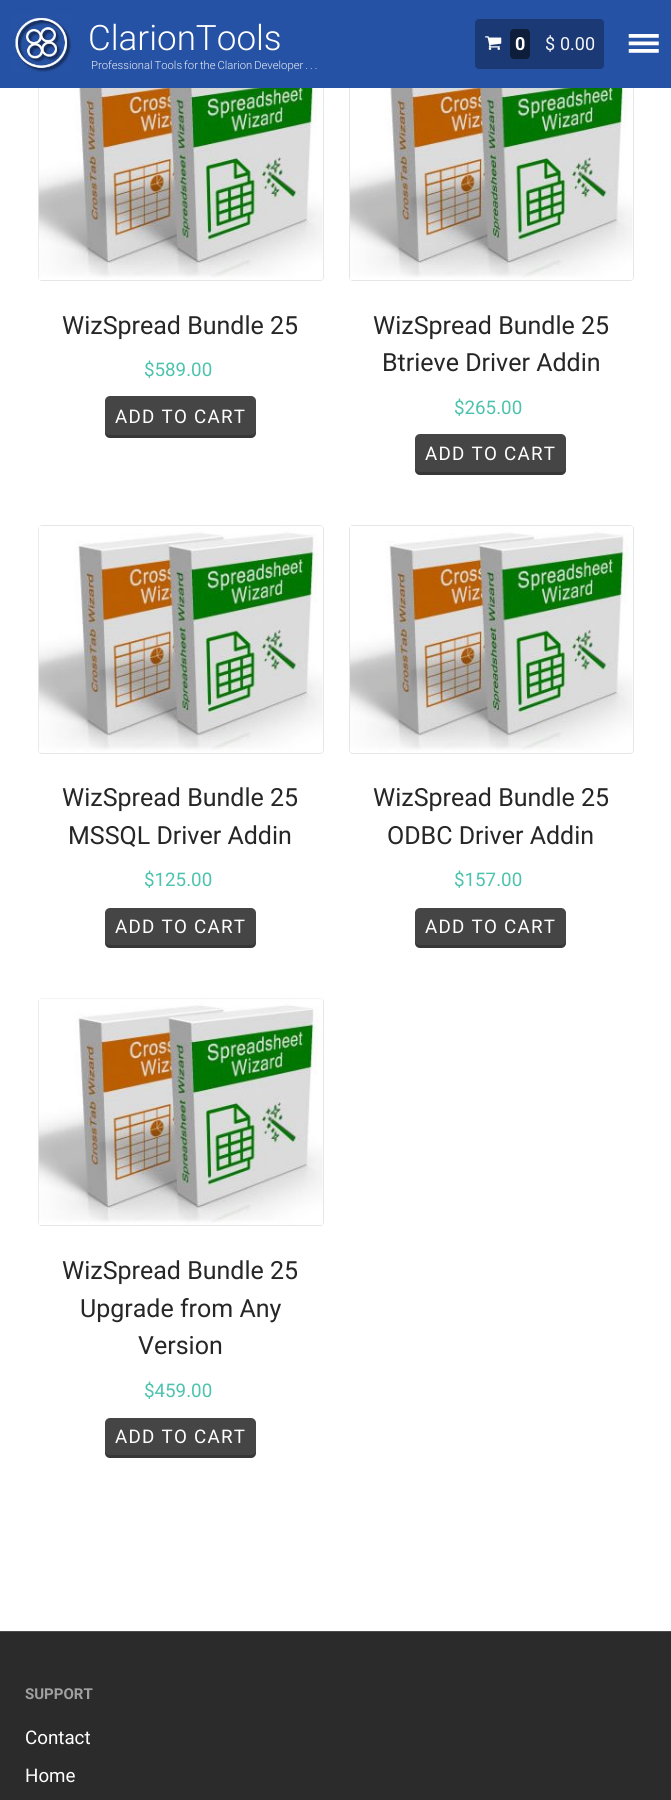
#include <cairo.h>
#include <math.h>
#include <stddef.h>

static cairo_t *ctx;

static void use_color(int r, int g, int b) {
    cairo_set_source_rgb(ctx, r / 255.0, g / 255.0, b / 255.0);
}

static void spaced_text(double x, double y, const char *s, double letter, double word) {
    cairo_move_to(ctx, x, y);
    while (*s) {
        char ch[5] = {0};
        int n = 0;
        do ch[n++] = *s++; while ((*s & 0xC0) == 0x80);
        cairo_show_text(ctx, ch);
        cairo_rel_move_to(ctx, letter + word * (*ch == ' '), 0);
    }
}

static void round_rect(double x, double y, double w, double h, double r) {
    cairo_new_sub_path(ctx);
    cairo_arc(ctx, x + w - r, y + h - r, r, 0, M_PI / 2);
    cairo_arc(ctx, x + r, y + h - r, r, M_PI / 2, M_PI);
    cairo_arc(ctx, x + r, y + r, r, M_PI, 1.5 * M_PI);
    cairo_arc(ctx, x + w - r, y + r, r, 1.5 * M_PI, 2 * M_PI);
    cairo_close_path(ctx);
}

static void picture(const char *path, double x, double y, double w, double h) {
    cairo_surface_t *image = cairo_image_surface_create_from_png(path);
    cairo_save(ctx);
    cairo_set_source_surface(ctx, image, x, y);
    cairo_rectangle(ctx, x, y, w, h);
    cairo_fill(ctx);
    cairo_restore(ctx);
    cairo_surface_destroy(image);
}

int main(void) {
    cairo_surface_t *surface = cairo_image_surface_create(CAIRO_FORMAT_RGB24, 671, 1800);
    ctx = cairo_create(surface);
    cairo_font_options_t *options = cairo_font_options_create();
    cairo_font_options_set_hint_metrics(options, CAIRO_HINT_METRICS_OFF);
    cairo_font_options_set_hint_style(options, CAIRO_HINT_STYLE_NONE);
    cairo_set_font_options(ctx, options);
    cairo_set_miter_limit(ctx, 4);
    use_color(255, 255, 255);
    cairo_paint(ctx);
    round_rect(38.5, 53.5, 285, 227, 3.5);
    use_color(230, 230, 230);
    cairo_set_line_width(ctx, 1);
    cairo_stroke(ctx);
    round_rect(349.5, 53.5, 284, 227, 3.5);
    cairo_stroke(ctx);
    use_color(38, 82, 165);
    cairo_rectangle(ctx, 0, 0, 671, 88);
    cairo_fill(ctx);
    picture("img1.png", 12, 14, 60, 58);
    cairo_select_font_face(ctx, "Roboto Light", CAIRO_FONT_SLANT_NORMAL, CAIRO_FONT_WEIGHT_NORMAL);
    cairo_set_font_size(ctx, 35);
    use_color(255, 255, 255);
    cairo_move_to(ctx, 88, 50);
    cairo_show_text(ctx, "ClarionTools");
    cairo_set_font_size(ctx, 11.25);
    use_color(233, 238, 246);
    spaced_text(91, 69, "Professional Tools for the Clarion Developer . . .", 0, -0.75);
    use_color(27, 57, 116);
    round_rect(475, 19, 129, 50, 4);
    cairo_fill(ctx);
    picture("img2.png", 485, 36, 17, 14);
    use_color(14, 29, 58);
    round_rect(510, 29, 20, 30, 4);
    cairo_fill(ctx);
    cairo_select_font_face(ctx, "Roboto", CAIRO_FONT_SLANT_NORMAL, CAIRO_FONT_WEIGHT_BOLD);
    cairo_set_font_size(ctx, 18);
    use_color(255, 255, 255);
    cairo_move_to(ctx, 515, 50);
    cairo_show_text(ctx, "0");
    cairo_select_font_face(ctx, "Roboto", CAIRO_FONT_SLANT_NORMAL, CAIRO_FONT_WEIGHT_NORMAL);
    use_color(244, 245, 248);
    cairo_move_to(ctx, 545, 50);
    cairo_show_text(ctx, "$");
    cairo_move_to(ctx, 560, 50);
    cairo_show_text(ctx, "0.00");
    picture("img3.png", 628, 34, 31, 19);
    picture("img4.png", 38, 88, 285, 192);
    cairo_set_font_size(ctx, 25);
    use_color(38, 38, 38);
    cairo_move_to(ctx, 62, 334);
    cairo_show_text(ctx, "WizSpread Bundle 25");
    cairo_set_font_size(ctx, 18.75);
    use_color(77, 195, 174);
    cairo_move_to(ctx, 144, 376);
    cairo_show_text(ctx, "$589.00");
    use_color(69, 69, 69);
    round_rect(105, 396, 151, 42, 5);
    cairo_fill(ctx);
    cairo_set_source_rgba(ctx, 0, 0, 0, 0.2);
    cairo_new_path(ctx);
    cairo_move_to(ctx, 105, 430);
    cairo_line_to(ctx, 105, 433);
    cairo_curve_to(ctx, 105, 436, 107, 438, 110, 438);
    cairo_line_to(ctx, 251, 438);
    cairo_curve_to(ctx, 254, 438, 256, 436, 256, 433);
    cairo_line_to(ctx, 256, 430);
    cairo_curve_to(ctx, 256, 433, 254, 435, 251, 435);
    cairo_line_to(ctx, 110, 435);
    cairo_curve_to(ctx, 107, 435, 105, 433, 105, 430);
    cairo_close_path(ctx);
    cairo_fill(ctx);
    use_color(255, 255, 255);
    spaced_text(115, 423, "ADD TO CART", 1.25, 0);
    picture("img5.png", 350, 88, 283, 192);
    cairo_set_font_size(ctx, 25);
    use_color(38, 38, 38);
    cairo_move_to(ctx, 373, 334);
    cairo_show_text(ctx, "WizSpread Bundle 25");
    cairo_move_to(ctx, 382, 371);
    cairo_show_text(ctx, "Btrieve Driver Addin");
    cairo_set_font_size(ctx, 18.75);
    use_color(77, 195, 174);
    cairo_move_to(ctx, 454, 414);
    cairo_show_text(ctx, "$265.00");
    use_color(69, 69, 69);
    round_rect(415, 434, 151, 41, 5);
    cairo_fill(ctx);
    cairo_set_source_rgba(ctx, 0, 0, 0, 0.2);
    cairo_new_path(ctx);
    cairo_move_to(ctx, 415, 468);
    cairo_line_to(ctx, 415, 470);
    cairo_curve_to(ctx, 415, 473, 417, 475, 420, 475);
    cairo_line_to(ctx, 561, 475);
    cairo_curve_to(ctx, 564, 475, 566, 473, 566, 470);
    cairo_line_to(ctx, 566, 468);
    cairo_curve_to(ctx, 566, 470, 564, 472, 561, 472);
    cairo_line_to(ctx, 420, 472);
    cairo_curve_to(ctx, 417, 472, 415, 470, 415, 468);
    cairo_close_path(ctx);
    cairo_fill(ctx);
    use_color(255, 255, 255);
    spaced_text(425, 460, "ADD TO CART", 1.25, 0);
    round_rect(38.5, 525.5, 285, 228, 3.5);
    use_color(230, 230, 230);
    cairo_stroke(ctx);
    picture("img6.png", 38, 526, 285, 227);
    cairo_set_font_size(ctx, 25);
    use_color(38, 38, 38);
    cairo_move_to(ctx, 62, 806);
    cairo_show_text(ctx, "WizSpread Bundle 25");
    cairo_move_to(ctx, 68, 844);
    cairo_show_text(ctx, "MSSQL Driver Addin");
    cairo_set_font_size(ctx, 18.75);
    use_color(77, 195, 174);
    cairo_move_to(ctx, 144, 886);
    cairo_show_text(ctx, "$125.00");
    use_color(69, 69, 69);
    round_rect(105, 908, 151, 40, 5);
    cairo_fill(ctx);
    cairo_set_source_rgba(ctx, 0, 0, 0, 0.2);
    cairo_new_path(ctx);
    cairo_move_to(ctx, 105, 940);
    cairo_line_to(ctx, 105, 943);
    cairo_curve_to(ctx, 105, 946, 107, 948, 110, 948);
    cairo_line_to(ctx, 251, 948);
    cairo_curve_to(ctx, 254, 948, 256, 946, 256, 943);
    cairo_line_to(ctx, 256, 940);
    cairo_curve_to(ctx, 256, 943, 254, 945, 251, 945);
    cairo_line_to(ctx, 110, 945);
    cairo_curve_to(ctx, 107, 945, 105, 943, 105, 940);
    cairo_close_path(ctx);
    cairo_fill(ctx);
    use_color(255, 255, 255);
    spaced_text(115, 933, "ADD TO CART", 1.25, 0);
    round_rect(349.5, 525.5, 284, 228, 3.5);
    use_color(230, 230, 230);
    cairo_stroke(ctx);
    picture("img7.png", 350, 526, 283, 227);
    cairo_set_font_size(ctx, 25);
    use_color(38, 38, 38);
    cairo_move_to(ctx, 373, 806);
    cairo_show_text(ctx, "WizSpread Bundle 25");
    cairo_move_to(ctx, 387, 844);
    cairo_show_text(ctx, "ODBC Driver Addin");
    cairo_set_font_size(ctx, 18.75);
    use_color(77, 195, 174);
    cairo_move_to(ctx, 454, 886);
    cairo_show_text(ctx, "$157.00");
    use_color(69, 69, 69);
    round_rect(415, 908, 151, 40, 5);
    cairo_fill(ctx);
    cairo_set_source_rgba(ctx, 0, 0, 0, 0.2);
    cairo_new_path(ctx);
    cairo_move_to(ctx, 415, 940);
    cairo_line_to(ctx, 415, 943);
    cairo_curve_to(ctx, 415, 946, 417, 948, 420, 948);
    cairo_line_to(ctx, 561, 948);
    cairo_curve_to(ctx, 564, 948, 566, 946, 566, 943);
    cairo_line_to(ctx, 566, 940);
    cairo_curve_to(ctx, 566, 943, 564, 945, 561, 945);
    cairo_line_to(ctx, 420, 945);
    cairo_curve_to(ctx, 417, 945, 415, 943, 415, 940);
    cairo_close_path(ctx);
    cairo_fill(ctx);
    use_color(255, 255, 255);
    spaced_text(425, 933, "ADD TO CART", 1.25, 0);
    round_rect(38.5, 998.5, 285, 227, 3.5);
    use_color(230, 230, 230);
    cairo_stroke(ctx);
    picture("img8.png", 38, 998, 285, 227);
    cairo_set_font_size(ctx, 25);
    use_color(38, 38, 38);
    cairo_move_to(ctx, 62, 1279);
    cairo_show_text(ctx, "WizSpread Bundle 25");
    cairo_move_to(ctx, 80, 1317);
    cairo_show_text(ctx, "Upgrade from Any");
    cairo_move_to(ctx, 138, 1354);
    cairo_show_text(ctx, "Version");
    cairo_set_font_size(ctx, 18.75);
    use_color(77, 195, 174);
    cairo_move_to(ctx, 144, 1397);
    cairo_show_text(ctx, "$459.00");
    use_color(69, 69, 69);
    round_rect(105, 1418, 151, 40, 5);
    cairo_fill(ctx);
    cairo_set_source_rgba(ctx, 0, 0, 0, 0.2);
    cairo_new_path(ctx);
    cairo_move_to(ctx, 105, 1450);
    cairo_line_to(ctx, 105, 1453);
    cairo_curve_to(ctx, 105, 1456, 107, 1458, 110, 1458);
    cairo_line_to(ctx, 251, 1458);
    cairo_curve_to(ctx, 254, 1458, 256, 1456, 256, 1453);
    cairo_line_to(ctx, 256, 1450);
    cairo_curve_to(ctx, 256, 1453, 254, 1455, 251, 1455);
    cairo_line_to(ctx, 110, 1455);
    cairo_curve_to(ctx, 107, 1455, 105, 1453, 105, 1450);
    cairo_close_path(ctx);
    cairo_fill(ctx);
    use_color(255, 255, 255);
    spaced_text(115, 1443, "ADD TO CART", 1.25, 0);
    use_color(43, 43, 43);
    cairo_rectangle(ctx, 0, 1632, 671, 168);
    cairo_fill(ctx);
    use_color(75, 75, 75);
    cairo_rectangle(ctx, 0, 1631, 671, 1);
    cairo_fill(ctx);
    cairo_select_font_face(ctx, "Roboto", CAIRO_FONT_SLANT_NORMAL, CAIRO_FONT_WEIGHT_BOLD);
    cairo_set_font_size(ctx, 15);
    use_color(160, 160, 160);
    cairo_move_to(ctx, 25, 1699);
    cairo_show_text(ctx, "SUPPORT");
    cairo_select_font_face(ctx, "Roboto", CAIRO_FONT_SLANT_NORMAL, CAIRO_FONT_WEIGHT_NORMAL);
    cairo_set_font_size(ctx, 18.75);
    use_color(255, 255, 255);
    cairo_move_to(ctx, 25, 1744);
    cairo_show_text(ctx, "Contact");
    cairo_move_to(ctx, 25, 1782);
    cairo_show_text(ctx, "Home");
    cairo_surface_write_to_png(surface, "result.png");
    cairo_font_options_destroy(options);
    cairo_destroy(ctx);
    cairo_surface_destroy(surface);
    return 0;
}
